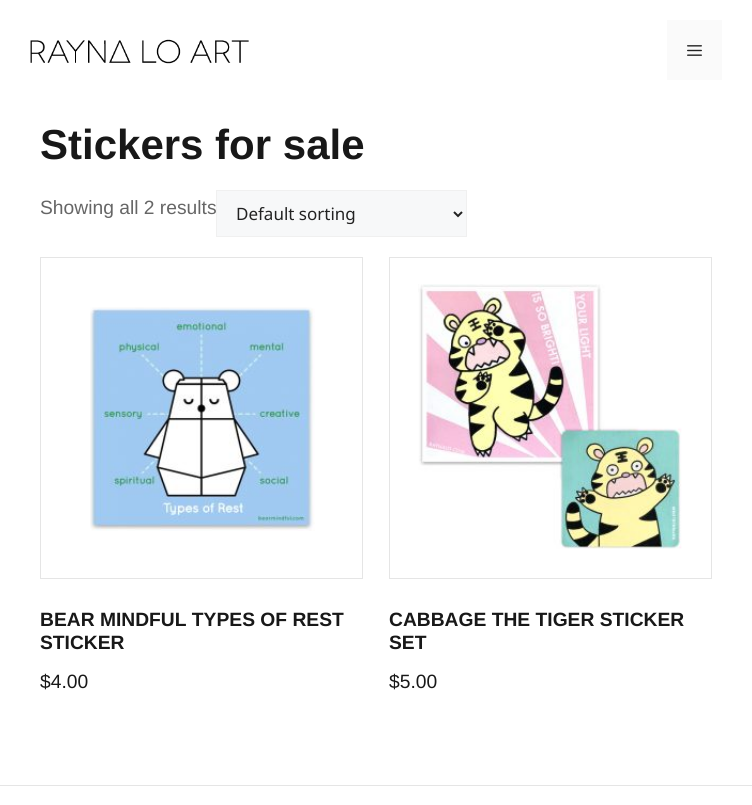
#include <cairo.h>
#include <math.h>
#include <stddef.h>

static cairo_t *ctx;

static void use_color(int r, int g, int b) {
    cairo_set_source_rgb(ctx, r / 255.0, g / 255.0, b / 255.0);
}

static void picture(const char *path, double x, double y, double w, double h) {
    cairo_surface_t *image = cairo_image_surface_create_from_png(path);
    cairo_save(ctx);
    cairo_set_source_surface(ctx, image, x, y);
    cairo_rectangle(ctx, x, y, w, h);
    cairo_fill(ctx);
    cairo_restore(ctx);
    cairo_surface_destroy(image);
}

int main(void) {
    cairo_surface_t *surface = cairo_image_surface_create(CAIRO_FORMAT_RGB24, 752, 805);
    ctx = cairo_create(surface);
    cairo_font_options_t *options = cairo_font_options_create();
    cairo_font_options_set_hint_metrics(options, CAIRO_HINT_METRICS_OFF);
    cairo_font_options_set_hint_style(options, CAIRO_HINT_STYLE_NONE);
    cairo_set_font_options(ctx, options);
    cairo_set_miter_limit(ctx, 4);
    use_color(255, 255, 255);
    cairo_paint(ctx);
    picture("img1.png", 30, 39, 219, 25);
    use_color(250, 250, 250);
    cairo_rectangle(ctx, 667, 20, 55, 60);
    cairo_fill(ctx);
    picture("img2.png", 687, 45, 15, 11);
    cairo_select_font_face(ctx, "Liberation Sans", CAIRO_FONT_SLANT_NORMAL, CAIRO_FONT_WEIGHT_BOLD);
    cairo_set_font_size(ctx, 42);
    use_color(24, 24, 24);
    cairo_move_to(ctx, 40, 159);
    cairo_show_text(ctx, "Stickers for sale");
    cairo_select_font_face(ctx, "Liberation Sans", CAIRO_FONT_SLANT_NORMAL, CAIRO_FONT_WEIGHT_NORMAL);
    cairo_set_font_size(ctx, 19.25);
    use_color(102, 102, 102);
    cairo_move_to(ctx, 40, 214);
    cairo_show_text(ctx, "Showing all 2 results");
    use_color(247, 248, 249);
    cairo_rectangle(ctx, 216.5, 190.5, 250, 46);
    cairo_fill_preserve(ctx);
    use_color(240, 240, 240);
    cairo_set_line_width(ctx, 1);
    cairo_stroke(ctx);
    cairo_new_path(ctx);
    cairo_move_to(ctx, 454, 212);
    cairo_line_to(ctx, 458, 216);
    cairo_line_to(ctx, 462, 212);
    use_color(34, 34, 34);
    cairo_set_line_width(ctx, 2);
    cairo_stroke(ctx);
    cairo_select_font_face(ctx, "Noto Sans", CAIRO_FONT_SLANT_NORMAL, CAIRO_FONT_WEIGHT_NORMAL);
    cairo_set_font_size(ctx, 17);
    cairo_move_to(ctx, 236, 220);
    cairo_show_text(ctx, "Default sorting");
    cairo_rectangle(ctx, 40.5, 257.5, 322, 321);
    use_color(229, 229, 229);
    cairo_set_line_width(ctx, 1);
    cairo_stroke(ctx);
    picture("img3.png", 90, 307, 225, 224);
    cairo_select_font_face(ctx, "Liberation Sans", CAIRO_FONT_SLANT_NORMAL, CAIRO_FONT_WEIGHT_BOLD);
    cairo_set_font_size(ctx, 19.25);
    use_color(24, 24, 24);
    cairo_move_to(ctx, 40, 626);
    cairo_show_text(ctx, "BEAR MINDFUL TYPES OF REST");
    cairo_move_to(ctx, 40, 649);
    cairo_show_text(ctx, "STICKER");
    cairo_select_font_face(ctx, "Liberation Sans", CAIRO_FONT_SLANT_NORMAL, CAIRO_FONT_WEIGHT_NORMAL);
    cairo_move_to(ctx, 40, 688);
    cairo_show_text(ctx, "$4.00");
    cairo_rectangle(ctx, 389.5, 257.5, 322, 321);
    use_color(229, 229, 229);
    cairo_stroke(ctx);
    picture("img4.png", 418, 284, 264, 265);
    cairo_select_font_face(ctx, "Liberation Sans", CAIRO_FONT_SLANT_NORMAL, CAIRO_FONT_WEIGHT_BOLD);
    use_color(24, 24, 24);
    cairo_move_to(ctx, 389, 626);
    cairo_show_text(ctx, "CABBAGE THE TIGER STICKER");
    cairo_move_to(ctx, 389, 649);
    cairo_show_text(ctx, "SET");
    cairo_select_font_face(ctx, "Liberation Sans", CAIRO_FONT_SLANT_NORMAL, CAIRO_FONT_WEIGHT_NORMAL);
    cairo_move_to(ctx, 389, 688);
    cairo_show_text(ctx, "$5.00");
    use_color(229, 229, 229);
    cairo_rectangle(ctx, 0, 785, 752, 1);
    cairo_fill(ctx);
    cairo_surface_write_to_png(surface, "result.png");
    cairo_font_options_destroy(options);
    cairo_destroy(ctx);
    cairo_surface_destroy(surface);
    return 0;
}
